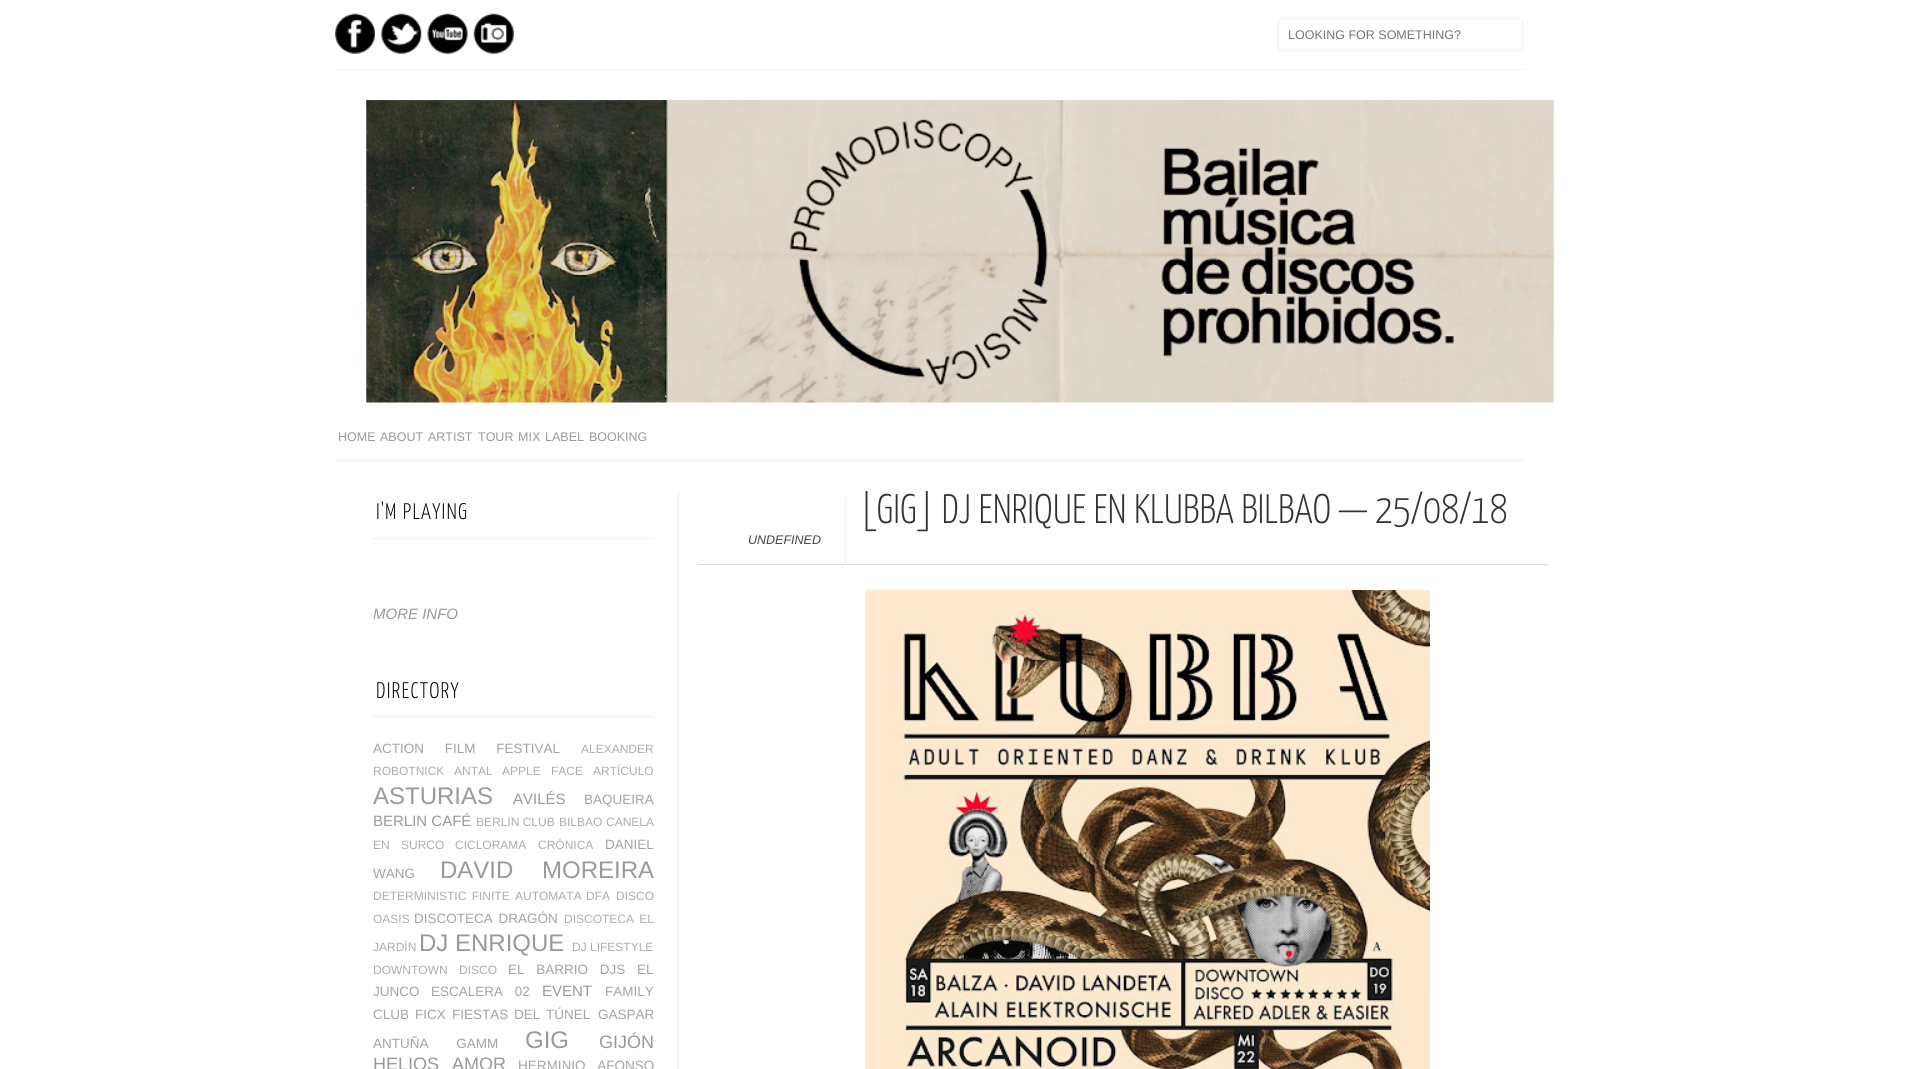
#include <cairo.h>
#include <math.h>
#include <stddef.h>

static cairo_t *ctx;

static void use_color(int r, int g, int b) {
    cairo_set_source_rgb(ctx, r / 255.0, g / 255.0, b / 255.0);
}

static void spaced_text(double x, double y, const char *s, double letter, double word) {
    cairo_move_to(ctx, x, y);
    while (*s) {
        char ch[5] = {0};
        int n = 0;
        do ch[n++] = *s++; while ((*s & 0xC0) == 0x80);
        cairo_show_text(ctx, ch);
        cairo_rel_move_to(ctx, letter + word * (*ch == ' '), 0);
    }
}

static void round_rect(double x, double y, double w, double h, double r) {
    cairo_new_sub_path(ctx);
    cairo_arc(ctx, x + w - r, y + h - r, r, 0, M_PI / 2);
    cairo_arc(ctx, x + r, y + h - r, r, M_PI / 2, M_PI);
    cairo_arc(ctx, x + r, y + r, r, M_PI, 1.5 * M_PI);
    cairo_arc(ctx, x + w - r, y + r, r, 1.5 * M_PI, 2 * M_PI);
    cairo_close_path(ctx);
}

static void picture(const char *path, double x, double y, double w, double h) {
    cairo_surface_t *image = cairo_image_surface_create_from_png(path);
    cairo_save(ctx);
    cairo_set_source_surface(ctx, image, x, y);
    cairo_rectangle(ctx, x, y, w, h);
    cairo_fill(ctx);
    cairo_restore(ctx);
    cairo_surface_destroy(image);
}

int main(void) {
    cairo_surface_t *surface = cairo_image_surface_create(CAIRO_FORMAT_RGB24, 1920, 1069);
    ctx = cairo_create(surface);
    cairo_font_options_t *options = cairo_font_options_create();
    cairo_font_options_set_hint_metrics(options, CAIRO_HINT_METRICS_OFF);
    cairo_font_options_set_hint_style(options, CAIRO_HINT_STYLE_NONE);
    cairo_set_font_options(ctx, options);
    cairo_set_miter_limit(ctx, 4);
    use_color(255, 255, 255);
    cairo_paint(ctx);
    use_color(242, 242, 242);
    cairo_rectangle(ctx, 335, 69, 1188, 1);
    cairo_fill(ctx);
    picture("img1.png", 335, 13, 40, 41);
    picture("img2.png", 381, 13, 41, 41);
    picture("img3.png", 427, 13, 41, 41);
    picture("img4.png", 473, 13, 41, 41);
    round_rect(1278.5, 18.5, 244, 32, 3.5);
    use_color(238, 238, 238);
    cairo_set_line_width(ctx, 1);
    cairo_stroke(ctx);
    cairo_select_font_face(ctx, "Liberation Sans", CAIRO_FONT_SLANT_NORMAL, CAIRO_FONT_WEIGHT_NORMAL);
    cairo_set_font_size(ctx, 12.5);
    use_color(117, 117, 117);
    cairo_move_to(ctx, 1288, 39);
    cairo_show_text(ctx, "LOOKING FOR SOMETHING?");
    picture("img5.png", 366, 100, 1188, 303);
    use_color(238, 238, 238);
    cairo_rectangle(ctx, 335, 460, 1188, 1);
    cairo_fill(ctx);
    use_color(153, 153, 153);
    cairo_move_to(ctx, 338, 441);
    cairo_show_text(ctx, "HOME");
    cairo_move_to(ctx, 380, 441);
    cairo_show_text(ctx, "ABOUT");
    cairo_move_to(ctx, 428, 441);
    cairo_show_text(ctx, "ARTIST");
    cairo_move_to(ctx, 478, 441);
    cairo_show_text(ctx, "TOUR");
    cairo_move_to(ctx, 518, 441);
    cairo_show_text(ctx, "MIX");
    cairo_move_to(ctx, 545, 441);
    cairo_show_text(ctx, "LABEL");
    cairo_move_to(ctx, 589, 441);
    cairo_show_text(ctx, "BOOKING");
    use_color(238, 238, 238);
    cairo_rectangle(ctx, 373, 538, 281, 1);
    cairo_fill(ctx);
    cairo_select_font_face(ctx, "Yanone Kaffeesatz ExtraLight", CAIRO_FONT_SLANT_NORMAL, CAIRO_FONT_WEIGHT_NORMAL);
    cairo_set_font_size(ctx, 22.5);
    use_color(0, 0, 0);
    spaced_text(376, 519, "I'M PLAYING", 1.25, 0);
    cairo_select_font_face(ctx, "Liberation Sans", CAIRO_FONT_SLANT_ITALIC, CAIRO_FONT_WEIGHT_NORMAL);
    cairo_set_font_size(ctx, 15);
    use_color(153, 153, 153);
    cairo_move_to(ctx, 373, 619);
    cairo_show_text(ctx, "MORE INFO");
    use_color(238, 238, 238);
    cairo_rectangle(ctx, 373, 716, 281, 1);
    cairo_fill(ctx);
    cairo_select_font_face(ctx, "Yanone Kaffeesatz ExtraLight", CAIRO_FONT_SLANT_NORMAL, CAIRO_FONT_WEIGHT_NORMAL);
    cairo_set_font_size(ctx, 22.5);
    use_color(0, 0, 0);
    spaced_text(376, 698, "DIRECTORY", 1.25, 0);
    cairo_select_font_face(ctx, "Liberation Sans", CAIRO_FONT_SLANT_NORMAL, CAIRO_FONT_WEIGHT_NORMAL);
    cairo_set_font_size(ctx, 13.5);
    use_color(163, 163, 163);
    spaced_text(373, 753, "ACTION FILM FESTIVAL", 0, 17);
    cairo_set_font_size(ctx, 12);
    use_color(173, 173, 173);
    cairo_move_to(ctx, 581, 753);
    cairo_show_text(ctx, "ALEXANDER");
    cairo_move_to(ctx, 373, 775);
    cairo_show_text(ctx, "ROBOTNICK");
    cairo_move_to(ctx, 454, 775);
    cairo_show_text(ctx, "ANTAL");
    spaced_text(502, 775, "APPLE FACE", 0, 7);
    cairo_move_to(ctx, 593, 775);
    cairo_show_text(ctx, "ARTÍCULO");
    cairo_set_font_size(ctx, 24);
    use_color(153, 153, 153);
    cairo_move_to(ctx, 373, 804);
    cairo_show_text(ctx, "ASTURIAS");
    cairo_set_font_size(ctx, 15);
    cairo_move_to(ctx, 513, 804);
    cairo_show_text(ctx, "AVILÉS");
    cairo_set_font_size(ctx, 13.5);
    use_color(163, 163, 163);
    cairo_move_to(ctx, 584, 804);
    cairo_show_text(ctx, "BAQUEIRA");
    cairo_set_font_size(ctx, 15);
    use_color(153, 153, 153);
    cairo_move_to(ctx, 373, 826);
    cairo_show_text(ctx, "BERLIN CAFÉ");
    cairo_set_font_size(ctx, 12);
    use_color(173, 173, 173);
    cairo_move_to(ctx, 476, 826);
    cairo_show_text(ctx, "BERLIN CLUB");
    cairo_move_to(ctx, 559, 826);
    cairo_show_text(ctx, "BILBAO");
    cairo_move_to(ctx, 606, 826);
    cairo_show_text(ctx, "CANELA");
    spaced_text(373, 849, "EN SURCO", 0, 8);
    cairo_move_to(ctx, 455, 849);
    cairo_show_text(ctx, "CICLORAMA");
    cairo_move_to(ctx, 538, 849);
    cairo_show_text(ctx, "CRÓNICA");
    cairo_set_font_size(ctx, 13.5);
    use_color(163, 163, 163);
    cairo_move_to(ctx, 605, 849);
    cairo_show_text(ctx, "DANIEL");
    cairo_move_to(ctx, 373, 878);
    cairo_show_text(ctx, "WANG");
    cairo_set_font_size(ctx, 24);
    use_color(153, 153, 153);
    spaced_text(440, 878, "DAVID MOREIRA", 0, 22);
    cairo_set_font_size(ctx, 12);
    use_color(173, 173, 173);
    spaced_text(373, 900, "DETERMINISTIC FINITE AUTOMATA", 0, 2);
    cairo_move_to(ctx, 586, 900);
    cairo_show_text(ctx, "DFA");
    cairo_move_to(ctx, 616, 900);
    cairo_show_text(ctx, "DISCO");
    cairo_move_to(ctx, 373, 923);
    cairo_show_text(ctx, "OASIS");
    cairo_set_font_size(ctx, 13.5);
    use_color(163, 163, 163);
    spaced_text(414, 923, "DISCOTECA DRAGÓN", 0, 2);
    cairo_set_font_size(ctx, 12);
    use_color(173, 173, 173);
    spaced_text(564, 923, "DISCOTECA EL", 0, 2);
    cairo_move_to(ctx, 373, 951);
    cairo_show_text(ctx, "JARDÍN");
    cairo_set_font_size(ctx, 24);
    use_color(153, 153, 153);
    cairo_move_to(ctx, 419, 951);
    cairo_show_text(ctx, "DJ ENRIQUE");
    cairo_set_font_size(ctx, 12);
    use_color(173, 173, 173);
    cairo_move_to(ctx, 572, 951);
    cairo_show_text(ctx, "DJ LIFESTYLE");
    spaced_text(373, 974, "DOWNTOWN DISCO", 0, 8);
    cairo_set_font_size(ctx, 13.5);
    use_color(163, 163, 163);
    spaced_text(508, 974, "EL BARRIO DJS", 0, 8);
    cairo_move_to(ctx, 637, 974);
    cairo_show_text(ctx, "EL");
    cairo_move_to(ctx, 373, 996);
    cairo_show_text(ctx, "JUNCO");
    spaced_text(431, 996, "ESCALERA 02", 0, 8);
    cairo_set_font_size(ctx, 15);
    use_color(153, 153, 153);
    cairo_move_to(ctx, 542, 996);
    cairo_show_text(ctx, "EVENT");
    cairo_set_font_size(ctx, 13.5);
    use_color(163, 163, 163);
    cairo_move_to(ctx, 605, 996);
    cairo_show_text(ctx, "FAMILY");
    cairo_move_to(ctx, 373, 1019);
    cairo_show_text(ctx, "CLUB");
    cairo_move_to(ctx, 415, 1019);
    cairo_show_text(ctx, "FICX");
    spaced_text(452, 1019, "FIESTAS DEL TÚNEL", 0, 2);
    cairo_move_to(ctx, 598, 1019);
    cairo_show_text(ctx, "GASPAR");
    spaced_text(373, 1048, "ANTUÑA GAMM", 0, 24);
    cairo_set_font_size(ctx, 24);
    use_color(153, 153, 153);
    cairo_move_to(ctx, 525, 1048);
    cairo_show_text(ctx, "GIG");
    cairo_set_font_size(ctx, 18);
    cairo_move_to(ctx, 599, 1048);
    cairo_show_text(ctx, "GIJÓN");
    spaced_text(373, 1070, "HELIOS AMOR", 0, 8);
    cairo_set_font_size(ctx, 13.5);
    use_color(163, 163, 163);
    spaced_text(518, 1070, "HERMINIO AFONSO", 0, 8);
    use_color(238, 238, 238);
    cairo_rectangle(ctx, 678, 491, 1, 578);
    cairo_fill(ctx);
    use_color(221, 221, 221);
    cairo_rectangle(ctx, 698, 564, 850, 1);
    cairo_fill(ctx);
    cairo_save(ctx);
    cairo_rectangle(ctx, 679, 491, 869, 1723);
    cairo_clip(ctx);
    cairo_select_font_face(ctx, "Yanone Kaffeesatz ExtraLight", CAIRO_FONT_SLANT_NORMAL, CAIRO_FONT_WEIGHT_NORMAL);
    cairo_set_font_size(ctx, 41.25);
    use_color(51, 51, 51);
    cairo_move_to(ctx, 859, 523);
    cairo_show_text(ctx, "[GIG] DJ ENRIQUE EN KLUBBA BILBAO — 25/08/18");
    cairo_restore(ctx);
    use_color(238, 238, 238);
    cairo_rectangle(ctx, 845, 498, 1, 66);
    cairo_fill(ctx);
    cairo_select_font_face(ctx, "Liberation Sans", CAIRO_FONT_SLANT_ITALIC, CAIRO_FONT_WEIGHT_NORMAL);
    cairo_set_font_size(ctx, 12.5);
    use_color(68, 68, 68);
    cairo_move_to(ctx, 748, 544);
    cairo_show_text(ctx, "UNDEFINED");
    picture("img6.png", 865, 590, 565, 479);
    cairo_surface_write_to_png(surface, "result.png");
    cairo_font_options_destroy(options);
    cairo_destroy(ctx);
    cairo_surface_destroy(surface);
    return 0;
}
